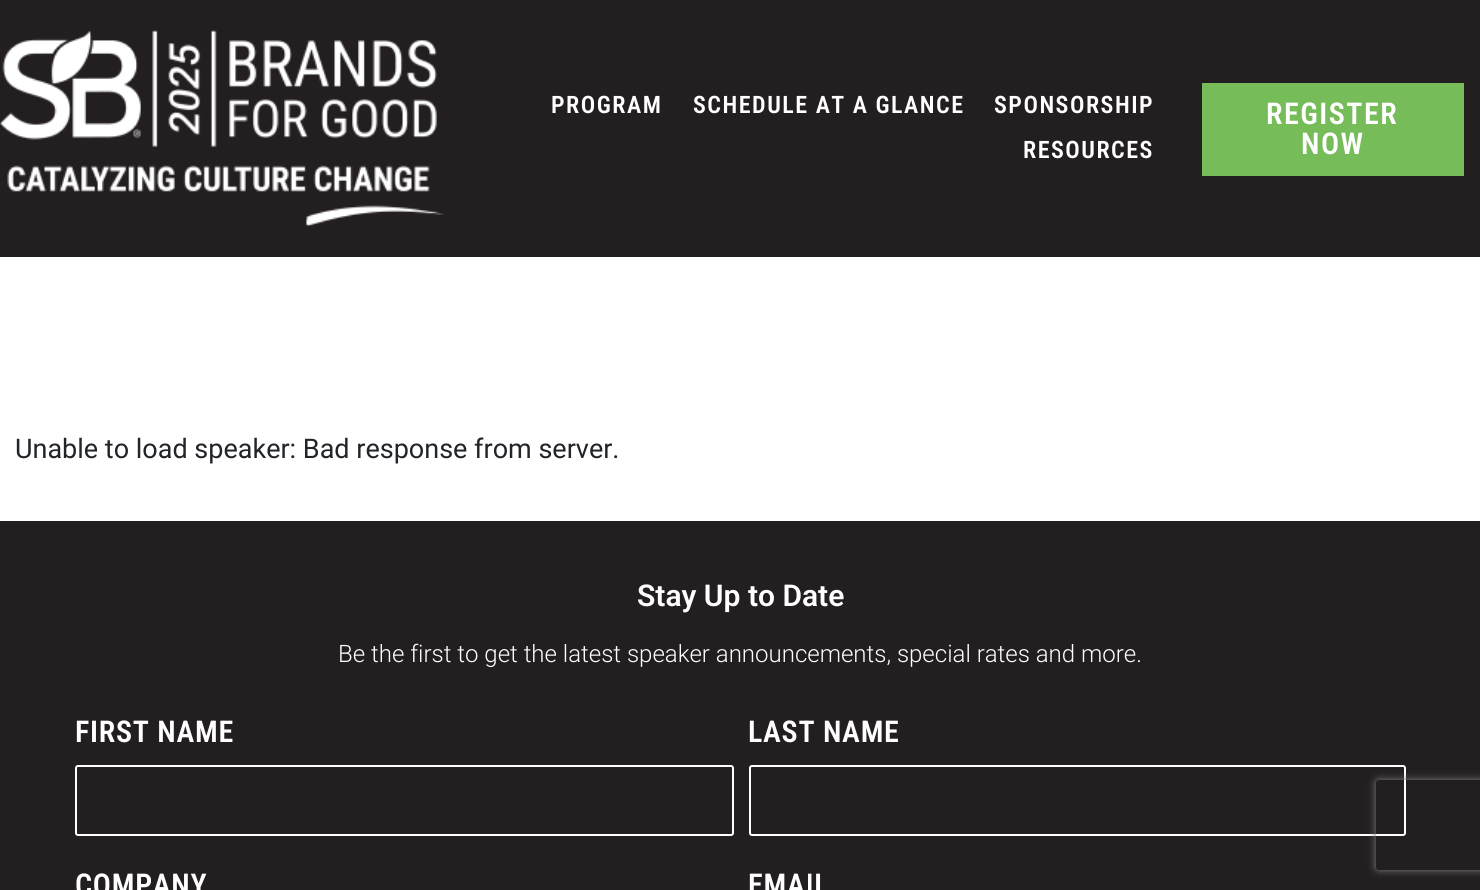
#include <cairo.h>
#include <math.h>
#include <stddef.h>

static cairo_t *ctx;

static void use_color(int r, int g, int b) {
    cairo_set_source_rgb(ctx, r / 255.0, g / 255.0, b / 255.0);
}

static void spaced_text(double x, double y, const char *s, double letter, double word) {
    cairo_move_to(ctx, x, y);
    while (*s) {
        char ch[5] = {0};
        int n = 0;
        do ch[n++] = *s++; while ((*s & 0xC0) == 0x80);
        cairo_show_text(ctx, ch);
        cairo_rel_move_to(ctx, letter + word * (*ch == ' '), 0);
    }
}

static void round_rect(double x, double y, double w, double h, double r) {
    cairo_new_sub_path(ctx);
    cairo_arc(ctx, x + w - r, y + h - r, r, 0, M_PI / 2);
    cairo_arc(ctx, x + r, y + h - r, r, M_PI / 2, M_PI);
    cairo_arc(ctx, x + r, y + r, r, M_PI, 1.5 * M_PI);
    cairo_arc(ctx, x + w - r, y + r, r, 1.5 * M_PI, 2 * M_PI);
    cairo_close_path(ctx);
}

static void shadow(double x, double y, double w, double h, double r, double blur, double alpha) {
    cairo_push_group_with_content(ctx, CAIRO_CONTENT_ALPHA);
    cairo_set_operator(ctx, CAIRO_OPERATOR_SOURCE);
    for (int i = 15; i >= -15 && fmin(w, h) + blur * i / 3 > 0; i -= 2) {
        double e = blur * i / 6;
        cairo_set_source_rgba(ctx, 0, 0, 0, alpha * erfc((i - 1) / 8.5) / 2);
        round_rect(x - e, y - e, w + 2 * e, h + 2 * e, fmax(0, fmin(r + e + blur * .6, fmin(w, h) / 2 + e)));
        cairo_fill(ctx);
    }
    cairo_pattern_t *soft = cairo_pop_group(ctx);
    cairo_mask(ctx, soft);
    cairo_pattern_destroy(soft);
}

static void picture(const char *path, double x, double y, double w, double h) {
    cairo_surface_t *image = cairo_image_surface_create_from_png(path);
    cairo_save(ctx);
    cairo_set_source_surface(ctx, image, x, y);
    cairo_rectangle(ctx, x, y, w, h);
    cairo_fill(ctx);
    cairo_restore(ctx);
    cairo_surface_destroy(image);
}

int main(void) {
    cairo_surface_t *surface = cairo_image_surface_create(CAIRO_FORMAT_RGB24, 1480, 890);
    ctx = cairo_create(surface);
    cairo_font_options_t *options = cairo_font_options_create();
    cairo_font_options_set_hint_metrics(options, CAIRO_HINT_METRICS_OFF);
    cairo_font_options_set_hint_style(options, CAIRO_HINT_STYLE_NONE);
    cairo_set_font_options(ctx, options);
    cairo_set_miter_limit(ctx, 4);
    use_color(255, 255, 255);
    cairo_paint(ctx);
    use_color(35, 31, 32);
    cairo_rectangle(ctx, 0, 0, 1480, 257);
    cairo_fill(ctx);
    picture("img1.png", 0, 30, 444, 197);
    cairo_select_font_face(ctx, "Roboto Condensed SemiBold", CAIRO_FONT_SLANT_NORMAL, CAIRO_FONT_WEIGHT_NORMAL);
    cairo_set_font_size(ctx, 24);
    use_color(255, 255, 255);
    spaced_text(551, 113, "PROGRAM", 1.5, 0);
    spaced_text(693, 113, "SCHEDULE AT A GLANCE", 1.5, 0);
    spaced_text(994, 113, "SPONSORSHIP", 1.5, 0);
    spaced_text(1023, 158, "RESOURCES", 1.5, 0);
    use_color(118, 188, 88);
    cairo_rectangle(ctx, 1202, 83, 262, 93);
    cairo_fill(ctx);
    cairo_set_font_size(ctx, 30);
    use_color(255, 255, 255);
    spaced_text(1266, 124, "REGISTER", 1.5, 0);
    spaced_text(1301, 154, "NOW", 1.5, 0);
    cairo_select_font_face(ctx, "Roboto", CAIRO_FONT_SLANT_NORMAL, CAIRO_FONT_WEIGHT_NORMAL);
    cairo_set_font_size(ctx, 27);
    use_color(33, 37, 41);
    cairo_move_to(ctx, 15, 458);
    cairo_show_text(ctx, "Unable to load speaker: Bad response from server.");
    use_color(35, 31, 32);
    cairo_rectangle(ctx, 0, 521, 1480, 369);
    cairo_fill(ctx);
    cairo_select_font_face(ctx, "Roboto SemiBold", CAIRO_FONT_SLANT_NORMAL, CAIRO_FONT_WEIGHT_NORMAL);
    cairo_set_font_size(ctx, 30);
    use_color(255, 255, 255);
    cairo_move_to(ctx, 637, 606);
    cairo_show_text(ctx, "Stay Up to Date");
    cairo_select_font_face(ctx, "Roboto Light", CAIRO_FONT_SLANT_NORMAL, CAIRO_FONT_WEIGHT_NORMAL);
    cairo_set_font_size(ctx, 24);
    cairo_move_to(ctx, 338, 662);
    cairo_show_text(ctx, "Be the first to get the latest speaker announcements, special rates and more.");
    cairo_select_font_face(ctx, "Roboto Condensed SemiBold", CAIRO_FONT_SLANT_NORMAL, CAIRO_FONT_WEIGHT_NORMAL);
    cairo_set_font_size(ctx, 30);
    spaced_text(75, 742, "FIRST NAME", 0.75, 0);
    round_rect(76, 766, 657, 69, 2);
    cairo_stroke(ctx);
    spaced_text(748, 742, "LAST NAME", 0.75, 0);
    round_rect(750, 766, 655, 69, 2);
    cairo_stroke(ctx);
    spaced_text(75, 895, "COMPANY", 0.75, 0);
    spaced_text(748, 895, "EMAIL", 0.75, 0);
    cairo_save(ctx);
    cairo_set_fill_rule(ctx, CAIRO_FILL_RULE_EVEN_ODD);
    cairo_new_path(ctx);
    cairo_move_to(ctx, 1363, 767);
    cairo_line_to(ctx, 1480, 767);
    cairo_line_to(ctx, 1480, 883);
    cairo_line_to(ctx, 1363, 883);
    cairo_close_path(ctx);
    cairo_move_to(ctx, 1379, 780);
    cairo_line_to(ctx, 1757, 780);
    cairo_curve_to(ctx, 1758.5, 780, 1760, 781.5, 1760, 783);
    cairo_line_to(ctx, 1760, 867);
    cairo_curve_to(ctx, 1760, 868.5, 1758.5, 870, 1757, 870);
    cairo_line_to(ctx, 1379, 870);
    cairo_curve_to(ctx, 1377.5, 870, 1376, 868.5, 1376, 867);
    cairo_line_to(ctx, 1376, 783);
    cairo_curve_to(ctx, 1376, 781.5, 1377.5, 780, 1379, 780);
    cairo_close_path(ctx);
    cairo_clip(ctx);
    use_color(128, 128, 128);
    shadow(1376, 780, 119, 90, 3, 4, 1);
    cairo_restore(ctx);
    cairo_surface_write_to_png(surface, "result.png");
    cairo_font_options_destroy(options);
    cairo_destroy(ctx);
    cairo_surface_destroy(surface);
    return 0;
}
